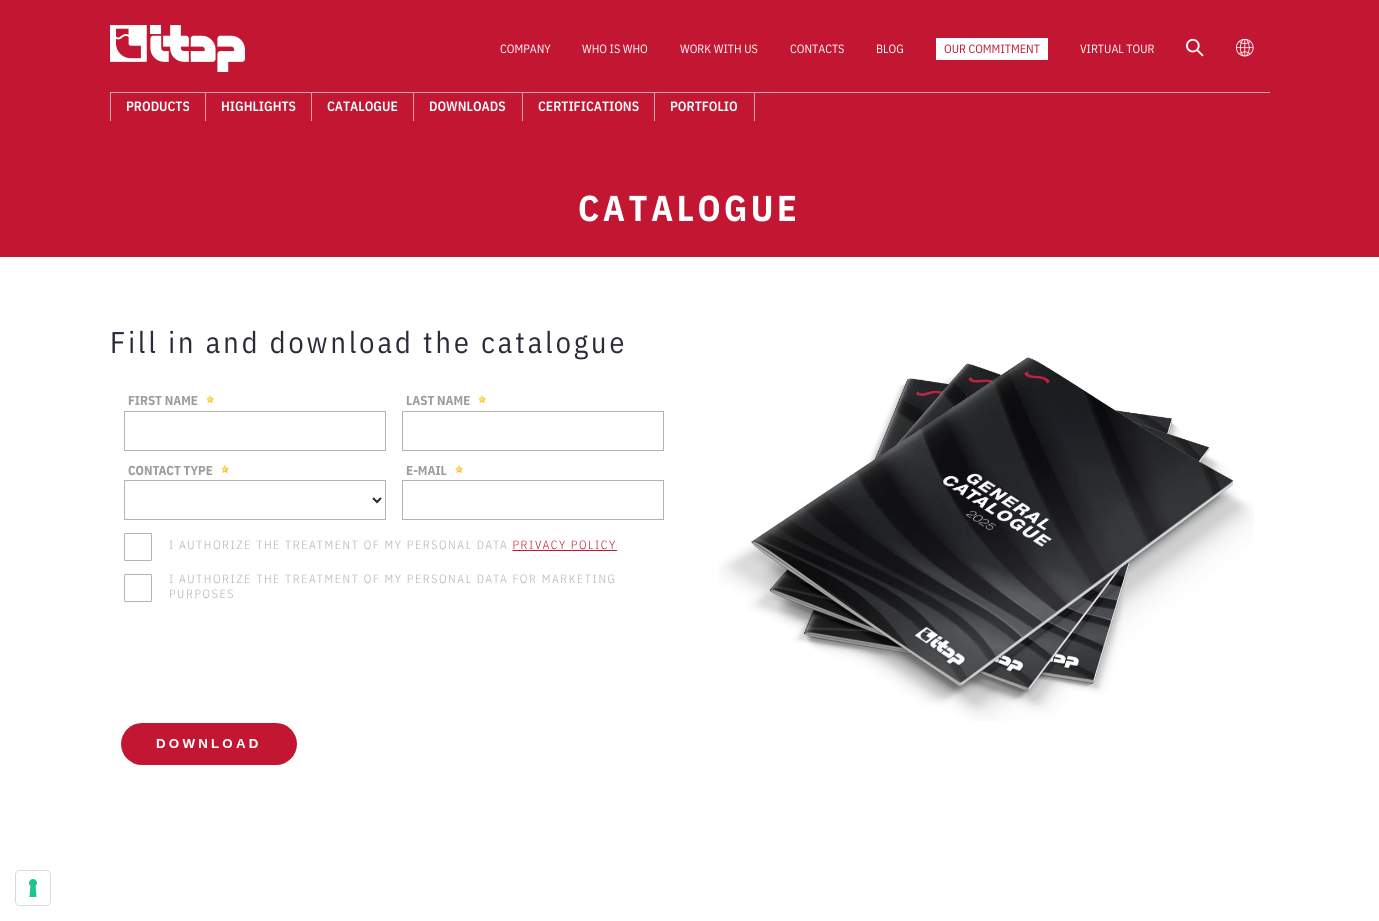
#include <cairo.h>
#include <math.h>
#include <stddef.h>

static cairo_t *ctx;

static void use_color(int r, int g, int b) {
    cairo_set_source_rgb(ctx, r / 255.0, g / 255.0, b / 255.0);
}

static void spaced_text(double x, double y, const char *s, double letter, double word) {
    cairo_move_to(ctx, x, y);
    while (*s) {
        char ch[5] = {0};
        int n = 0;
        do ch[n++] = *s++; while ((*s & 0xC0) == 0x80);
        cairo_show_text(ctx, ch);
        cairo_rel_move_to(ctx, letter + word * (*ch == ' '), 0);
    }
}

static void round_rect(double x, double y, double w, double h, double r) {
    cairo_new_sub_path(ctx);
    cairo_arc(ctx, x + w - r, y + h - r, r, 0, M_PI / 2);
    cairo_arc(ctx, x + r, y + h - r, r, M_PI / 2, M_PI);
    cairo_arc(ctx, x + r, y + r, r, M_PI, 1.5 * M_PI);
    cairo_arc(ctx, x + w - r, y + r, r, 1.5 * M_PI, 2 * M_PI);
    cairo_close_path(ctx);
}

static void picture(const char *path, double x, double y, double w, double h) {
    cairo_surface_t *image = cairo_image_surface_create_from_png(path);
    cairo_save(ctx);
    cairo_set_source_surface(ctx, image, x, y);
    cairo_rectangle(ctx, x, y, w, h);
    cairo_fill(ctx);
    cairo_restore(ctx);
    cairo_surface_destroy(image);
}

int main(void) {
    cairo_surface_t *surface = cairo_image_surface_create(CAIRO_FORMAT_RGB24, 1379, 921);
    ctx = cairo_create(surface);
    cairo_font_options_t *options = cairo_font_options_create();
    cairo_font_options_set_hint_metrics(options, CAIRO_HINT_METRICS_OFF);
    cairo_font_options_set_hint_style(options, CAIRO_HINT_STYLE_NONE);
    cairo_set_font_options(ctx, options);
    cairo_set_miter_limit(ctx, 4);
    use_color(255, 255, 255);
    cairo_paint(ctx);
    use_color(194, 22, 50);
    cairo_rectangle(ctx, 0, 0, 1379, 257);
    cairo_fill(ctx);
    picture("img1.png", 110, 25, 135, 47);
    cairo_select_font_face(ctx, "IBM Plex Sans Condensed", CAIRO_FONT_SLANT_NORMAL, CAIRO_FONT_WEIGHT_NORMAL);
    cairo_set_font_size(ctx, 12);
    use_color(255, 255, 255);
    cairo_move_to(ctx, 500, 53);
    cairo_show_text(ctx, "COMPANY");
    cairo_move_to(ctx, 582, 53);
    cairo_show_text(ctx, "WHO IS WHO");
    cairo_move_to(ctx, 680, 53);
    cairo_show_text(ctx, "WORK WITH US");
    cairo_move_to(ctx, 790, 53);
    cairo_show_text(ctx, "CONTACTS");
    cairo_move_to(ctx, 876, 53);
    cairo_show_text(ctx, "BLOG");
    cairo_rectangle(ctx, 936, 38, 112, 22);
    cairo_fill(ctx);
    use_color(194, 22, 50);
    cairo_move_to(ctx, 944, 53);
    cairo_show_text(ctx, "OUR COMMITMENT");
    use_color(255, 255, 255);
    cairo_move_to(ctx, 1080, 53);
    cairo_show_text(ctx, "VIRTUAL TOUR");
    picture("img2.png", 1186, 38, 18, 19);
    picture("img3.png", 1236, 38, 18, 19);
    use_color(231, 162, 173);
    cairo_rectangle(ctx, 110, 92, 1160, 1);
    cairo_fill(ctx);
    cairo_rectangle(ctx, 205, 93, 1, 28);
    cairo_fill(ctx);
    cairo_rectangle(ctx, 110, 93, 1, 28);
    cairo_fill(ctx);
    cairo_select_font_face(ctx, "IBM Plex Sans Condensed SemiBold", CAIRO_FONT_SLANT_NORMAL, CAIRO_FONT_WEIGHT_NORMAL);
    cairo_set_font_size(ctx, 13.5);
    use_color(255, 255, 255);
    cairo_move_to(ctx, 126, 111);
    cairo_show_text(ctx, "PRODUCTS");
    use_color(231, 162, 173);
    cairo_rectangle(ctx, 311, 93, 1, 28);
    cairo_fill(ctx);
    use_color(255, 255, 255);
    cairo_move_to(ctx, 221, 111);
    cairo_show_text(ctx, "HIGHLIGHTS");
    use_color(231, 162, 173);
    cairo_rectangle(ctx, 413, 93, 1, 28);
    cairo_fill(ctx);
    use_color(255, 255, 255);
    cairo_move_to(ctx, 327, 111);
    cairo_show_text(ctx, "CATALOGUE");
    use_color(231, 162, 173);
    cairo_rectangle(ctx, 522, 93, 1, 28);
    cairo_fill(ctx);
    use_color(255, 255, 255);
    cairo_move_to(ctx, 429, 111);
    cairo_show_text(ctx, "DOWNLOADS");
    use_color(231, 162, 173);
    cairo_rectangle(ctx, 654, 93, 1, 28);
    cairo_fill(ctx);
    use_color(255, 255, 255);
    cairo_move_to(ctx, 538, 111);
    cairo_show_text(ctx, "CERTIFICATIONS");
    use_color(231, 162, 173);
    cairo_rectangle(ctx, 754, 93, 1, 28);
    cairo_fill(ctx);
    use_color(255, 255, 255);
    cairo_move_to(ctx, 670, 111);
    cairo_show_text(ctx, "PORTFOLIO");
    cairo_select_font_face(ctx, "IBM Plex Sans Condensed", CAIRO_FONT_SLANT_NORMAL, CAIRO_FONT_WEIGHT_BOLD);
    cairo_set_font_size(ctx, 36);
    spaced_text(578, 221, "CATALOGUE", 3.5, 0);
    cairo_select_font_face(ctx, "IBM Plex Sans Condensed", CAIRO_FONT_SLANT_NORMAL, CAIRO_FONT_WEIGHT_NORMAL);
    cairo_set_font_size(ctx, 30);
    use_color(42, 43, 57);
    spaced_text(110, 353, "Fill in and download the catalogue", 3, 0);
    picture("img4.png", 121, 395, 543, 370);
    picture("img5.png", 718, 357, 536, 364);
    round_rect(15.5, 870.5, 35, 35, 4.5);
    use_color(217, 217, 217);
    cairo_set_line_width(ctx, 1);
    cairo_stroke(ctx);
    use_color(255, 255, 255);
    round_rect(16, 871, 34, 34, 4);
    cairo_fill(ctx);
    picture("img6.png", 29, 879, 8, 18);
    cairo_surface_write_to_png(surface, "result.png");
    cairo_font_options_destroy(options);
    cairo_destroy(ctx);
    cairo_surface_destroy(surface);
    return 0;
}
